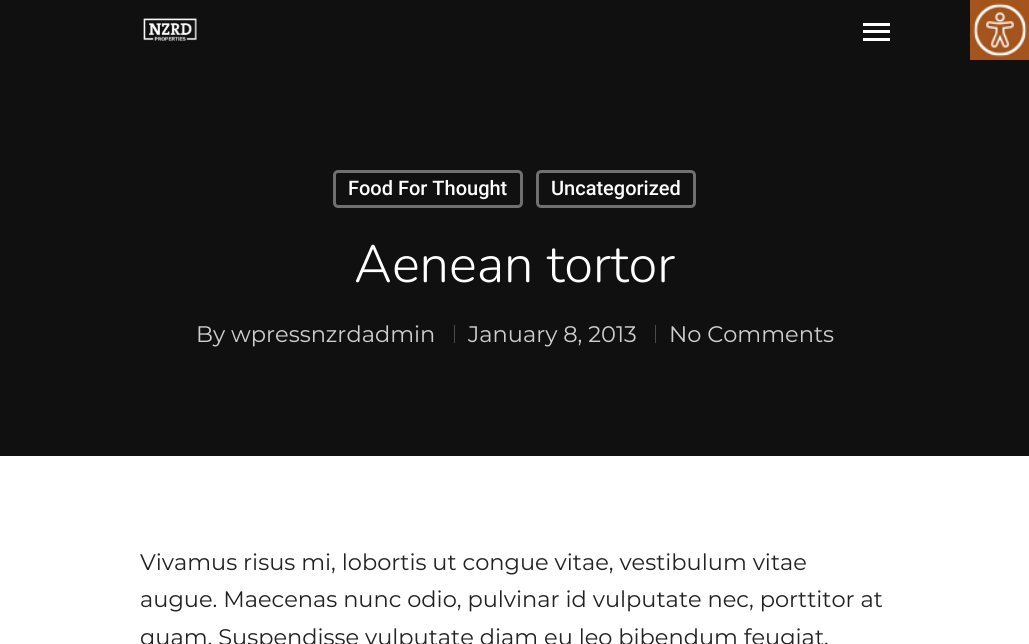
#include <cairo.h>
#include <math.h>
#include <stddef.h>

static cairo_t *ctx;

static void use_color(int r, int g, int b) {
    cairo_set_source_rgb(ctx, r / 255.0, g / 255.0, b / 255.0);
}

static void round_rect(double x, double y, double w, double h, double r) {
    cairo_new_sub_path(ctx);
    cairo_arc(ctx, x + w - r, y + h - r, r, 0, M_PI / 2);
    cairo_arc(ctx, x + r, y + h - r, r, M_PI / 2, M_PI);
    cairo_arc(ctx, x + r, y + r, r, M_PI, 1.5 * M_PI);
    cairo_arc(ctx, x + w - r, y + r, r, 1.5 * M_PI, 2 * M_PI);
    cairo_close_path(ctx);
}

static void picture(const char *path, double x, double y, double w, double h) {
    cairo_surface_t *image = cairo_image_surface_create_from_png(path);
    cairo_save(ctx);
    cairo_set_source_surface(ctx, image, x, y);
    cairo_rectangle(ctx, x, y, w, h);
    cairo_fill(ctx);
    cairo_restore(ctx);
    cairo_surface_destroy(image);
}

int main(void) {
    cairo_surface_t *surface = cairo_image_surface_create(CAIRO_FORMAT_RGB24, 1029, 644);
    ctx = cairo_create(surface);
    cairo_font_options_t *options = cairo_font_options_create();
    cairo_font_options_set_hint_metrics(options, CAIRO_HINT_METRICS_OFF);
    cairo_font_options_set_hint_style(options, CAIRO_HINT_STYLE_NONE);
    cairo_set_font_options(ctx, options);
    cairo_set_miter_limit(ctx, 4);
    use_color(255, 255, 255);
    cairo_paint(ctx);
    use_color(16, 16, 16);
    cairo_rectangle(ctx, 0, 0, 1029, 456);
    cairo_fill(ctx);
    picture("img1.png", 143, 18, 54, 23);
    use_color(255, 255, 255);
    cairo_rectangle(ctx, 863, 23, 27, 3);
    cairo_fill(ctx);
    cairo_rectangle(ctx, 863, 38, 27, 3);
    cairo_fill(ctx);
    cairo_rectangle(ctx, 863, 30, 27, 3);
    cairo_fill(ctx);
    picture("img2.png", 970, 0, 59, 60);
    round_rect(334.5, 171.5, 187, 35, 3.5);
    use_color(112, 112, 112);
    cairo_set_line_width(ctx, 3);
    cairo_stroke(ctx);
    cairo_select_font_face(ctx, "Roboto Medium", CAIRO_FONT_SLANT_NORMAL, CAIRO_FONT_WEIGHT_NORMAL);
    cairo_set_font_size(ctx, 20);
    use_color(255, 255, 255);
    cairo_move_to(ctx, 348, 195);
    cairo_show_text(ctx, "Food For Thought");
    round_rect(537.5, 171.5, 157, 35, 3.5);
    use_color(112, 112, 112);
    cairo_stroke(ctx);
    use_color(255, 255, 255);
    cairo_move_to(ctx, 551, 195);
    cairo_show_text(ctx, "Uncategorized");
    cairo_select_font_face(ctx, "Nunito Light", CAIRO_FONT_SLANT_NORMAL, CAIRO_FONT_WEIGHT_NORMAL);
    cairo_set_font_size(ctx, 52.5);
    cairo_move_to(ctx, 354, 282);
    cairo_show_text(ctx, "Aenean tortor");
    cairo_select_font_face(ctx, "Montserrat", CAIRO_FONT_SLANT_NORMAL, CAIRO_FONT_WEIGHT_NORMAL);
    cairo_set_font_size(ctx, 22.5);
    use_color(207, 207, 207);
    cairo_move_to(ctx, 196, 342);
    cairo_show_text(ctx, "By wpressnzrdadmin");
    use_color(76, 76, 76);
    cairo_rectangle(ctx, 454, 325, 1, 18);
    cairo_fill(ctx);
    use_color(207, 207, 207);
    cairo_move_to(ctx, 468, 342);
    cairo_show_text(ctx, "January 8, 2013");
    use_color(76, 76, 76);
    cairo_rectangle(ctx, 655, 325, 1, 18);
    cairo_fill(ctx);
    use_color(207, 207, 207);
    cairo_move_to(ctx, 669, 342);
    cairo_show_text(ctx, "No Comments");
    use_color(34, 34, 34);
    cairo_move_to(ctx, 140, 570);
    cairo_show_text(ctx, "Vivamus risus mi, lobortis ut congue vitae, vestibulum vitae");
    cairo_move_to(ctx, 140, 607);
    cairo_show_text(ctx, "augue. Maecenas nunc odio, pulvinar id vulputate nec, porttitor at");
    cairo_move_to(ctx, 140, 645);
    cairo_show_text(ctx, "quam. Suspendisse vulputate diam eu leo bibendum feugiat.");
    cairo_surface_write_to_png(surface, "result.png");
    cairo_font_options_destroy(options);
    cairo_destroy(ctx);
    cairo_surface_destroy(surface);
    return 0;
}
